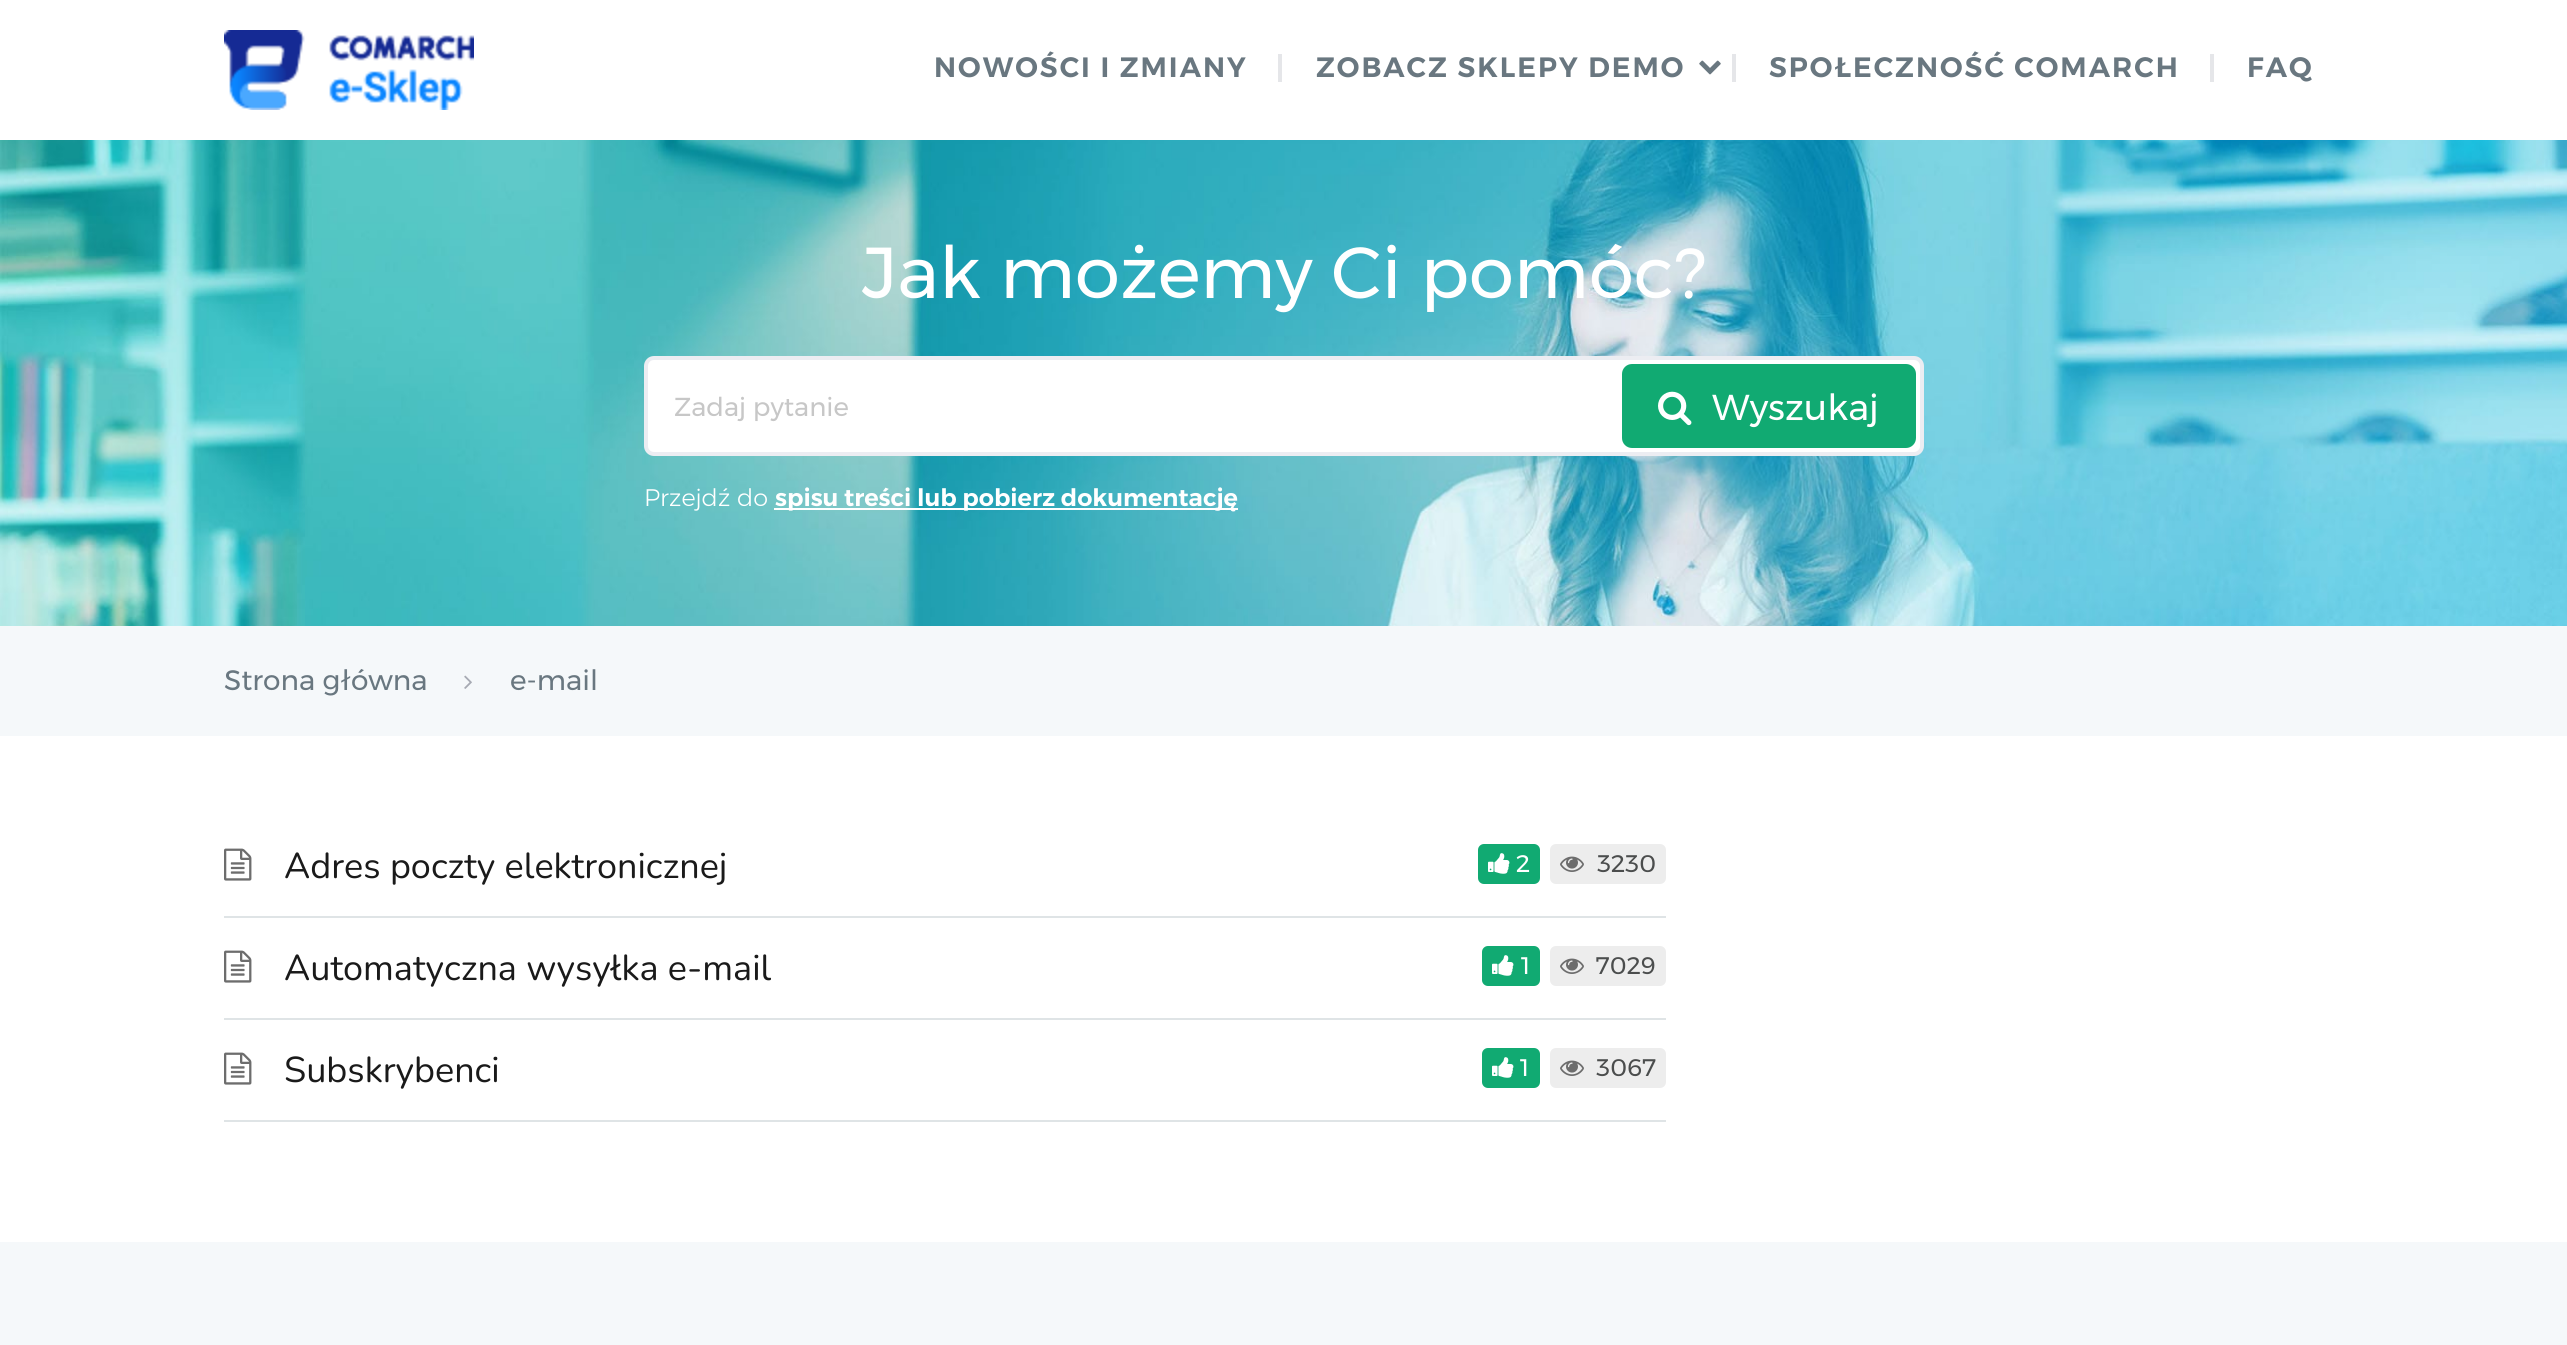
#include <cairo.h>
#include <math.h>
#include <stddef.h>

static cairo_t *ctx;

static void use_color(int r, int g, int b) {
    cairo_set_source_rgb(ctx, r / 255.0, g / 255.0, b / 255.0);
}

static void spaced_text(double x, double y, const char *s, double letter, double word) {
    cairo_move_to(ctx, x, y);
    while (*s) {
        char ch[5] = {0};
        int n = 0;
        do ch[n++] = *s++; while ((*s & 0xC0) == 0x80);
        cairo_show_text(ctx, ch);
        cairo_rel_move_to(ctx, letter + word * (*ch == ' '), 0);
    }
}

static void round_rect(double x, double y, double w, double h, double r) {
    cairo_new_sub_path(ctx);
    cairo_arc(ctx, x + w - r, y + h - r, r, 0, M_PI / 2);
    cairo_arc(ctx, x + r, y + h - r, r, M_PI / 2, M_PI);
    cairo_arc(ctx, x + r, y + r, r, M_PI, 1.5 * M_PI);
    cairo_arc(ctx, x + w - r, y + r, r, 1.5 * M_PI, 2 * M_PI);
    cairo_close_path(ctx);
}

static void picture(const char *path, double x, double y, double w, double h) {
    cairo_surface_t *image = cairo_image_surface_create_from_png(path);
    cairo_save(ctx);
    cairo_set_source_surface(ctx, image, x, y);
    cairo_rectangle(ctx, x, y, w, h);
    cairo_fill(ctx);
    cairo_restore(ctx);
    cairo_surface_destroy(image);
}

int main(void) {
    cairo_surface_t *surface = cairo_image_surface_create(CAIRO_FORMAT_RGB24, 2567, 1345);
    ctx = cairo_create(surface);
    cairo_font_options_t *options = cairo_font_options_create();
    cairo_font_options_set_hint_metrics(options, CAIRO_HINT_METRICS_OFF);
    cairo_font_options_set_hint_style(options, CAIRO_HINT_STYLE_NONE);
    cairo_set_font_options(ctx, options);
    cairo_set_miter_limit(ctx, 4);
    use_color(255, 255, 255);
    cairo_paint(ctx);
    picture("img1.png", 224, 30, 250, 80);
    cairo_select_font_face(ctx, "Montserrat SemiBold", CAIRO_FONT_SLANT_NORMAL, CAIRO_FONT_WEIGHT_NORMAL);
    cairo_set_font_size(ctx, 28);
    use_color(105, 119, 128);
    spaced_text(934, 77, "NOWOŚCI I ZMIANY", 2, 0);
    use_color(229, 230, 233);
    cairo_rectangle(ctx, 1278, 54, 4, 28);
    cairo_fill(ctx);
    use_color(105, 119, 128);
    spaced_text(1316, 77, "ZOBACZ SKLEPY DEMO", 2, 0);
    picture("img2.png", 1699, 60, 22, 15);
    use_color(229, 230, 233);
    cairo_rectangle(ctx, 1732, 54, 4, 28);
    cairo_fill(ctx);
    use_color(105, 119, 128);
    spaced_text(1769, 77, "SPOŁECZNOŚĆ COMARCH", 2, 0);
    use_color(229, 230, 233);
    cairo_rectangle(ctx, 2210, 54, 4, 28);
    cairo_fill(ctx);
    use_color(105, 119, 128);
    spaced_text(2247, 77, "FAQ", 2, 0);
    picture("img3.png", 0, 140, 2567, 486);
    cairo_select_font_face(ctx, "Montserrat", CAIRO_FONT_SLANT_NORMAL, CAIRO_FONT_WEIGHT_NORMAL);
    cairo_set_font_size(ctx, 72);
    use_color(255, 255, 255);
    cairo_move_to(ctx, 862, 298);
    cairo_show_text(ctx, "Jak możemy Ci pomóc?");
    round_rect(646, 358, 1276, 96, 8);
    cairo_fill_preserve(ctx);
    use_color(236, 237, 242);
    cairo_set_line_width(ctx, 4);
    cairo_stroke(ctx);
    cairo_set_font_size(ctx, 26);
    use_color(199, 199, 199);
    cairo_move_to(ctx, 674, 416);
    cairo_show_text(ctx, "Zadaj pytanie");
    use_color(17, 170, 114);
    round_rect(1622, 364, 294, 84, 10);
    cairo_fill(ctx);
    picture("img4.png", 1658, 391, 34, 35);
    cairo_set_font_size(ctx, 36);
    use_color(255, 255, 255);
    cairo_move_to(ctx, 1712, 420);
    cairo_show_text(ctx, "Wyszukaj");
    cairo_select_font_face(ctx, "Montserrat Light", CAIRO_FONT_SLANT_NORMAL, CAIRO_FONT_WEIGHT_NORMAL);
    cairo_set_font_size(ctx, 24);
    cairo_move_to(ctx, 644, 506);
    cairo_show_text(ctx, "Przejdź do");
    cairo_rectangle(ctx, 774, 508, 464, 2);
    cairo_fill(ctx);
    cairo_select_font_face(ctx, "Montserrat SemiBold", CAIRO_FONT_SLANT_NORMAL, CAIRO_FONT_WEIGHT_NORMAL);
    cairo_move_to(ctx, 775, 506);
    cairo_show_text(ctx, "spisu treści lub pobierz dokumentację");
    use_color(245, 248, 250);
    cairo_rectangle(ctx, 0, 626, 2567, 110);
    cairo_fill(ctx);
    cairo_select_font_face(ctx, "Montserrat", CAIRO_FONT_SLANT_NORMAL, CAIRO_FONT_WEIGHT_NORMAL);
    cairo_set_font_size(ctx, 28);
    use_color(105, 119, 128);
    cairo_move_to(ctx, 224, 690);
    cairo_show_text(ctx, "Strona główna");
    picture("img5.png", 464, 675, 8, 14);
    cairo_move_to(ctx, 510, 690);
    cairo_show_text(ctx, "e-mail");
    use_color(223, 228, 230);
    cairo_rectangle(ctx, 224, 916, 1442, 2);
    cairo_fill(ctx);
    picture("img6.png", 224, 848, 28, 33);
    cairo_select_font_face(ctx, "Nunito", CAIRO_FONT_SLANT_NORMAL, CAIRO_FONT_WEIGHT_NORMAL);
    cairo_set_font_size(ctx, 36);
    use_color(26, 26, 26);
    cairo_move_to(ctx, 284, 878);
    cairo_show_text(ctx, "Adres poczty elektronicznej");
    use_color(17, 170, 114);
    round_rect(1478, 844, 62, 40, 6);
    cairo_fill(ctx);
    picture("img7.png", 1488, 853, 22, 21);
    cairo_select_font_face(ctx, "Montserrat", CAIRO_FONT_SLANT_NORMAL, CAIRO_FONT_WEIGHT_NORMAL);
    cairo_set_font_size(ctx, 24);
    use_color(255, 255, 255);
    cairo_move_to(ctx, 1516, 872);
    cairo_show_text(ctx, "2");
    use_color(237, 237, 237);
    round_rect(1550, 844, 116, 40, 6);
    cairo_fill(ctx);
    picture("img8.png", 1560, 856, 24, 16);
    use_color(75, 77, 77);
    cairo_move_to(ctx, 1597, 872);
    cairo_show_text(ctx, "3230");
    use_color(223, 228, 230);
    cairo_rectangle(ctx, 224, 1018, 1442, 2);
    cairo_fill(ctx);
    picture("img6.png", 224, 950, 28, 33);
    cairo_select_font_face(ctx, "Nunito", CAIRO_FONT_SLANT_NORMAL, CAIRO_FONT_WEIGHT_NORMAL);
    cairo_set_font_size(ctx, 36);
    use_color(26, 26, 26);
    cairo_move_to(ctx, 284, 980);
    cairo_show_text(ctx, "Automatyczna wysyłka e-mail");
    use_color(17, 170, 114);
    round_rect(1482, 946, 58, 40, 6);
    cairo_fill(ctx);
    picture("img7.png", 1492, 955, 22, 21);
    cairo_select_font_face(ctx, "Montserrat", CAIRO_FONT_SLANT_NORMAL, CAIRO_FONT_WEIGHT_NORMAL);
    cairo_set_font_size(ctx, 24);
    use_color(255, 255, 255);
    cairo_move_to(ctx, 1521, 974);
    cairo_show_text(ctx, "1");
    use_color(237, 237, 237);
    round_rect(1550, 946, 116, 40, 6);
    cairo_fill(ctx);
    picture("img8.png", 1560, 958, 24, 16);
    use_color(75, 77, 77);
    cairo_move_to(ctx, 1596, 974);
    cairo_show_text(ctx, "7029");
    use_color(223, 228, 230);
    cairo_rectangle(ctx, 224, 1120, 1442, 2);
    cairo_fill(ctx);
    picture("img6.png", 224, 1052, 28, 33);
    cairo_select_font_face(ctx, "Nunito", CAIRO_FONT_SLANT_NORMAL, CAIRO_FONT_WEIGHT_NORMAL);
    cairo_set_font_size(ctx, 36);
    use_color(26, 26, 26);
    cairo_move_to(ctx, 284, 1082);
    cairo_show_text(ctx, "Subskrybenci");
    use_color(17, 170, 114);
    round_rect(1482, 1048, 58, 40, 6);
    cairo_fill(ctx);
    picture("img7.png", 1492, 1057, 22, 21);
    cairo_select_font_face(ctx, "Montserrat", CAIRO_FONT_SLANT_NORMAL, CAIRO_FONT_WEIGHT_NORMAL);
    cairo_set_font_size(ctx, 24);
    use_color(255, 255, 255);
    cairo_move_to(ctx, 1520, 1076);
    cairo_show_text(ctx, "1");
    use_color(237, 237, 237);
    round_rect(1550, 1048, 116, 40, 6);
    cairo_fill(ctx);
    picture("img8.png", 1560, 1060, 24, 16);
    use_color(75, 77, 77);
    cairo_move_to(ctx, 1596, 1076);
    cairo_show_text(ctx, "3067");
    use_color(245, 248, 250);
    cairo_rectangle(ctx, 0, 1242, 2567, 103);
    cairo_fill(ctx);
    cairo_surface_write_to_png(surface, "result.png");
    cairo_font_options_destroy(options);
    cairo_destroy(ctx);
    cairo_surface_destroy(surface);
    return 0;
}
